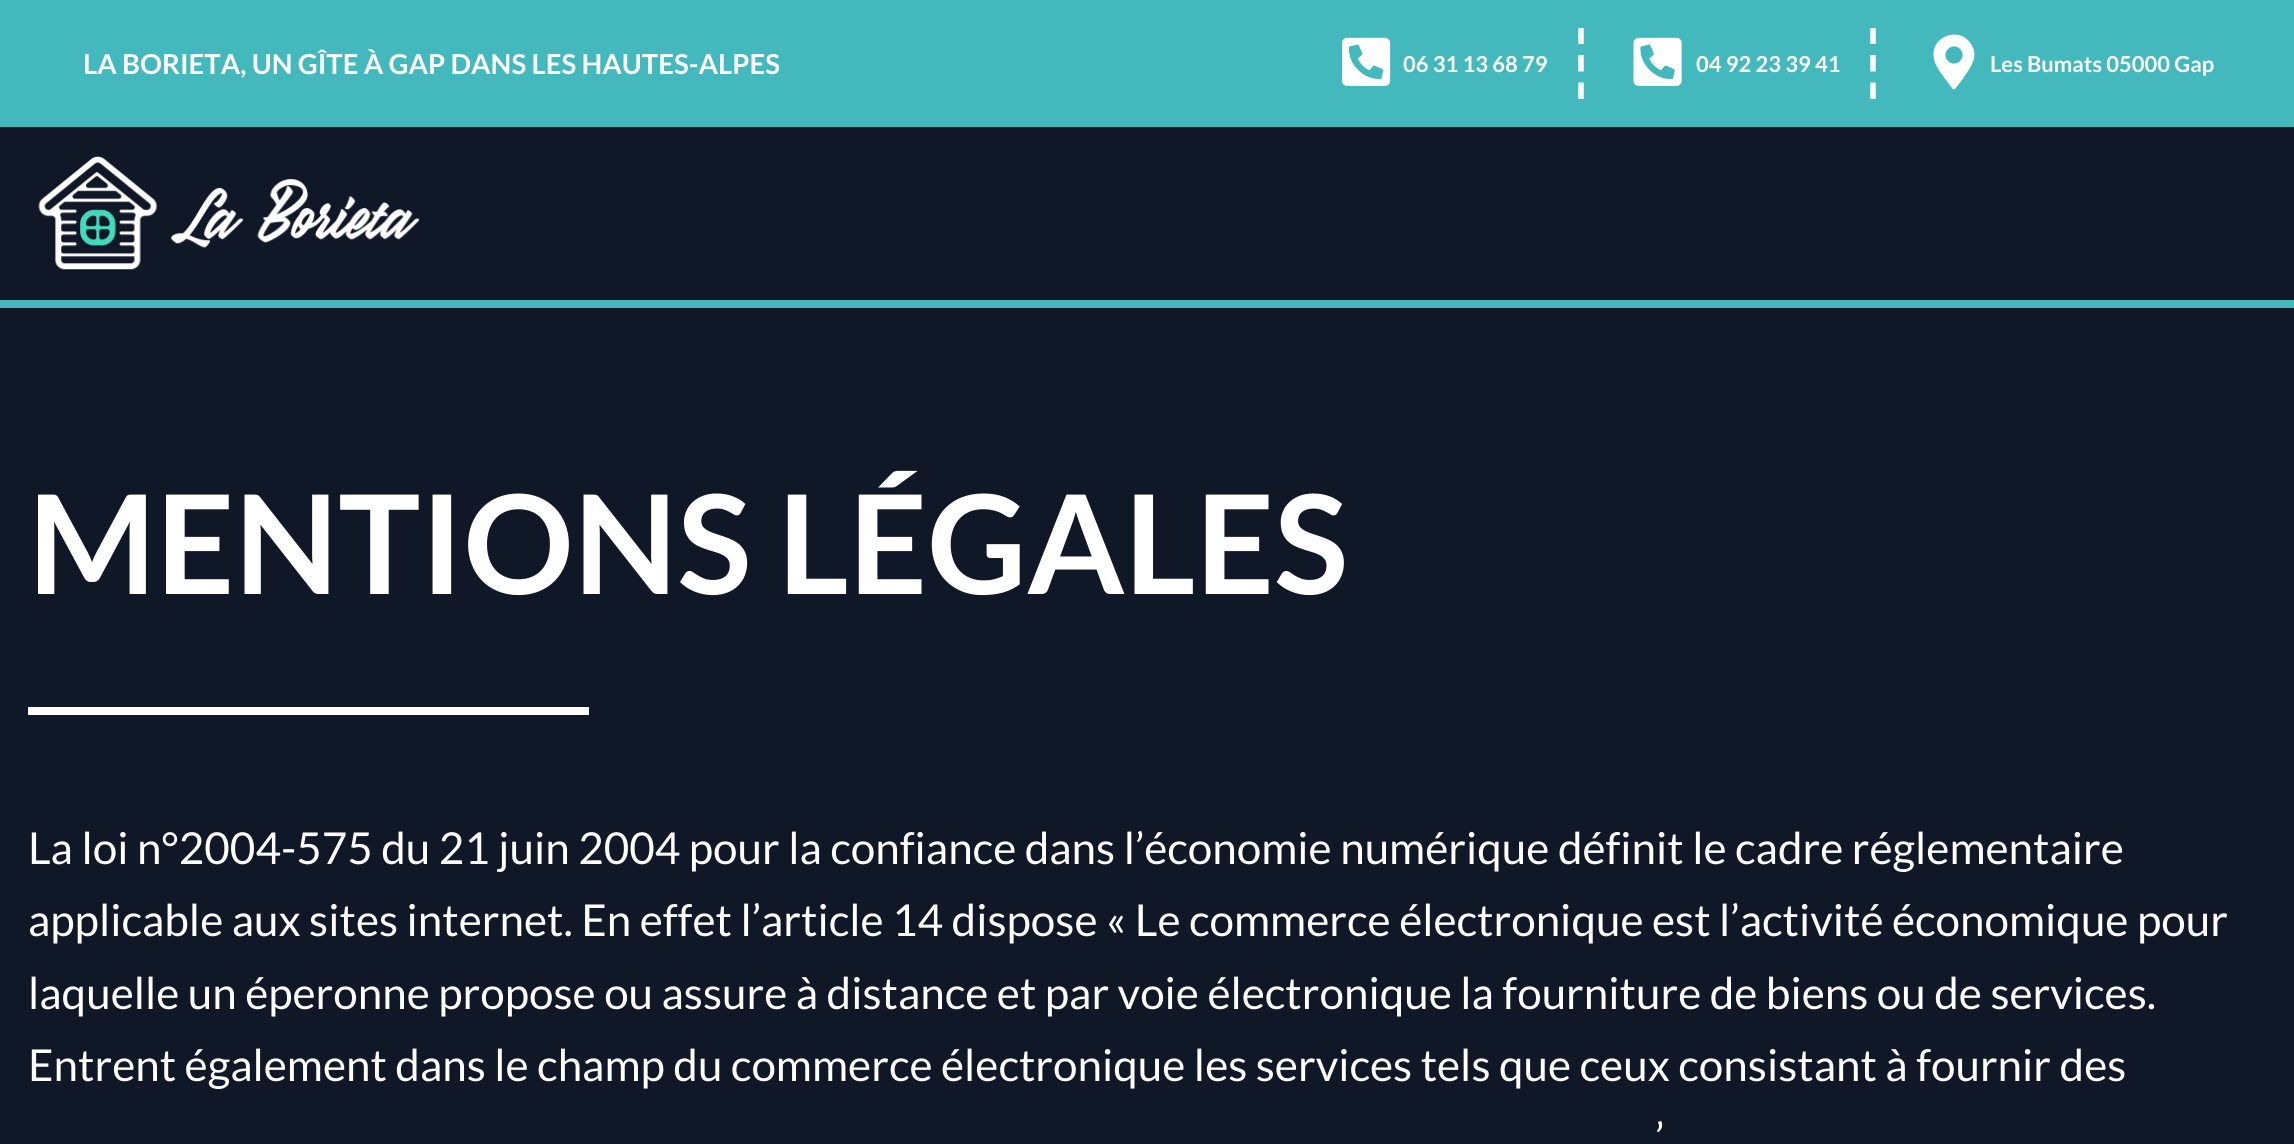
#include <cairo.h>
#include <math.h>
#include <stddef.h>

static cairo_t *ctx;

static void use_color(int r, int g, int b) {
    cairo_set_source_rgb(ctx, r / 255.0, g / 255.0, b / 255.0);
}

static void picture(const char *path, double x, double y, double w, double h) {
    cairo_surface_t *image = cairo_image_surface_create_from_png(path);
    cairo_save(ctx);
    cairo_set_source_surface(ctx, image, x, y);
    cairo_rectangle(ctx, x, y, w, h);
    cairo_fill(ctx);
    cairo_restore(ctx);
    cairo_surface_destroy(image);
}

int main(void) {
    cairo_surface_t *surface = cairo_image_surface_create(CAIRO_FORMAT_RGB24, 2294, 1144);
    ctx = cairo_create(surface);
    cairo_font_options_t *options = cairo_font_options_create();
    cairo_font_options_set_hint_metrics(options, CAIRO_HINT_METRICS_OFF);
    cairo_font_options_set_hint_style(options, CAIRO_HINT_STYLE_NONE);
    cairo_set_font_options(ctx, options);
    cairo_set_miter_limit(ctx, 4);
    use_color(67, 185, 189);
    cairo_paint(ctx);
    cairo_select_font_face(ctx, "Lato", CAIRO_FONT_SLANT_NORMAL, CAIRO_FONT_WEIGHT_BOLD);
    cairo_set_font_size(ctx, 27.5);
    use_color(255, 255, 255);
    cairo_move_to(ctx, 83, 74);
    cairo_show_text(ctx, "LA BORIETA, UN GÎTE À GAP DANS LES HAUTES-ALPES");
    picture("img1.png", 1342, 37, 49, 49);
    cairo_set_font_size(ctx, 22);
    cairo_move_to(ctx, 1403, 72);
    cairo_show_text(ctx, "06 31 13 68 79");
    cairo_save(ctx);
    cairo_rectangle(ctx, 1177, 28, 1037, 71);
    cairo_clip(ctx);
    cairo_new_path(ctx);
    cairo_move_to(ctx, 1581, 27.5);
    cairo_line_to(ctx, 1581, 44);
    cairo_move_to(ctx, 1581, 55);
    cairo_line_to(ctx, 1581, 71.5);
    cairo_move_to(ctx, 1581, 82.5);
    cairo_line_to(ctx, 1581, 99);
    cairo_set_line_width(ctx, 5.5);
    cairo_stroke(ctx);
    cairo_restore(ctx);
    picture("img2.png", 1633, 37, 49, 49);
    cairo_move_to(ctx, 1696, 72);
    cairo_show_text(ctx, "04 92 23 39 41");
    cairo_save(ctx);
    cairo_rectangle(ctx, 1177, 28, 1037, 71);
    cairo_clip(ctx);
    cairo_new_path(ctx);
    cairo_move_to(ctx, 1873, 27.5);
    cairo_line_to(ctx, 1873, 44);
    cairo_move_to(ctx, 1873, 55);
    cairo_line_to(ctx, 1873, 71.5);
    cairo_move_to(ctx, 1873, 82.5);
    cairo_line_to(ctx, 1873, 99);
    cairo_set_line_width(ctx, 5.5);
    cairo_stroke(ctx);
    cairo_restore(ctx);
    cairo_new_path(ctx);
    cairo_move_to(ctx, 1952, 88);
    cairo_curve_to(ctx, 1947, 81, 1935, 67, 1934, 59);
    cairo_curve_to(ctx, 1929, 37, 1959, 25, 1971, 44);
    cairo_curve_to(ctx, 1980, 57, 1969, 69, 1962, 80);
    cairo_line_to(ctx, 1955, 89);
    cairo_curve_to(ctx, 1954, 90, 1952, 89, 1952, 88);
    cairo_close_path(ctx);
    cairo_move_to(ctx, 1948, 61);
    cairo_curve_to(ctx, 1956, 69, 1968, 57, 1960, 49);
    cairo_curve_to(ctx, 1952, 41, 1940, 53, 1948, 61);
    cairo_close_path(ctx);
    cairo_fill(ctx);
    cairo_move_to(ctx, 1990, 72);
    cairo_show_text(ctx, "Les Bumats 05000 Gap");
    use_color(16, 23, 38);
    cairo_rectangle(ctx, 0, 127, 2294, 173);
    cairo_fill(ctx);
    picture("img3.png", 38, 156, 382, 114);
    cairo_rectangle(ctx, 0, 308, 2294, 836);
    cairo_fill(ctx);
    cairo_set_font_size(ctx, 137.5);
    use_color(255, 255, 255);
    cairo_move_to(ctx, 28, 594);
    cairo_show_text(ctx, "MENTIONS LÉGALES");
    cairo_rectangle(ctx, 28, 707, 561, 8);
    cairo_fill(ctx);
    cairo_select_font_face(ctx, "Lato", CAIRO_FONT_SLANT_NORMAL, CAIRO_FONT_WEIGHT_NORMAL);
    cairo_set_font_size(ctx, 44);
    cairo_move_to(ctx, 28, 864);
    cairo_show_text(ctx, "La loi n°2004-575 du 21 juin 2004 pour la confiance dans l’économie numérique définit le cadre réglementaire");
    cairo_move_to(ctx, 28, 936);
    cairo_show_text(ctx, "applicable aux sites internet. En effet l’article 14 dispose « Le commerce électronique est l’activité économique pour");
    cairo_move_to(ctx, 28, 1009);
    cairo_show_text(ctx, "laquelle un éperonne propose ou assure à distance et par voie électronique la fourniture de biens ou de services.");
    cairo_move_to(ctx, 28, 1081);
    cairo_show_text(ctx, "Entrent également dans le champ du commerce électronique les services tels que ceux consistant à fournir des");
    cairo_move_to(ctx, 1655, 1154);
    cairo_show_text(ctx, "’");
    cairo_surface_write_to_png(surface, "result.png");
    cairo_font_options_destroy(options);
    cairo_destroy(ctx);
    cairo_surface_destroy(surface);
    return 0;
}
